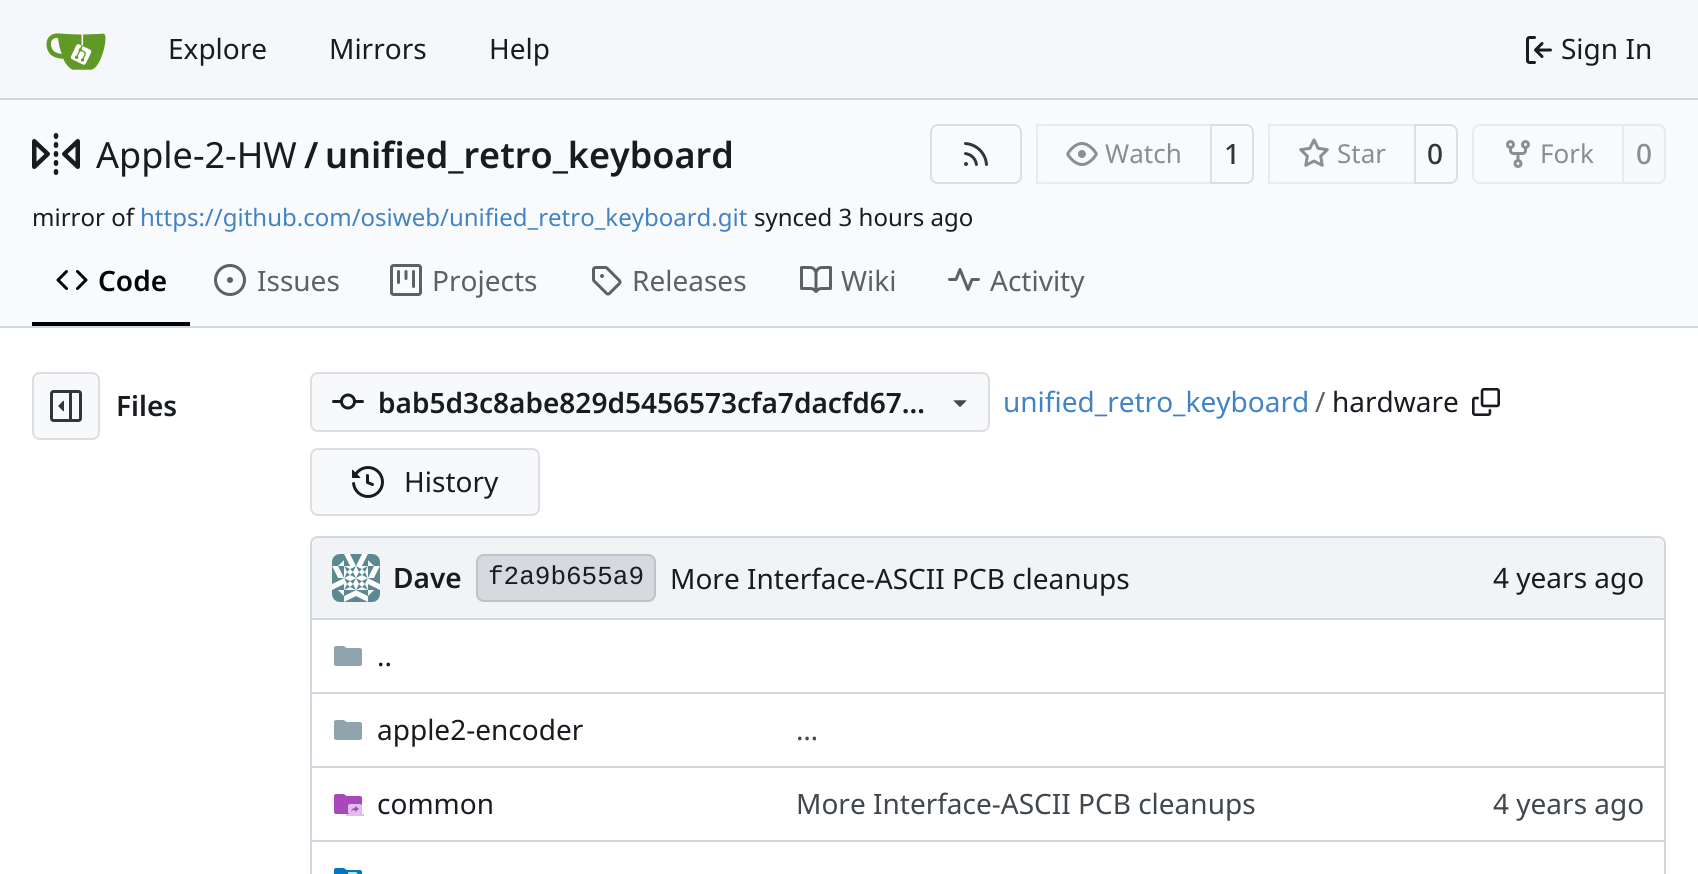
#include <cairo.h>
#include <math.h>
#include <stddef.h>

static cairo_t *ctx;

static void use_color(int r, int g, int b) {
    cairo_set_source_rgb(ctx, r / 255.0, g / 255.0, b / 255.0);
}

static void round_rect(double x, double y, double w, double h, double r) {
    cairo_new_sub_path(ctx);
    cairo_arc(ctx, x + w - r, y + h - r, r, 0, M_PI / 2);
    cairo_arc(ctx, x + r, y + h - r, r, M_PI / 2, M_PI);
    cairo_arc(ctx, x + r, y + r, r, M_PI, 1.5 * M_PI);
    cairo_arc(ctx, x + w - r, y + r, r, 1.5 * M_PI, 2 * M_PI);
    cairo_close_path(ctx);
}

static void picture(const char *path, double x, double y, double w, double h) {
    cairo_surface_t *image = cairo_image_surface_create_from_png(path);
    cairo_save(ctx);
    cairo_set_source_surface(ctx, image, x, y);
    cairo_rectangle(ctx, x, y, w, h);
    cairo_fill(ctx);
    cairo_restore(ctx);
    cairo_surface_destroy(image);
}

int main(void) {
    cairo_surface_t *surface = cairo_image_surface_create(CAIRO_FORMAT_RGB24, 1698, 874);
    ctx = cairo_create(surface);
    cairo_font_options_t *options = cairo_font_options_create();
    cairo_font_options_set_hint_metrics(options, CAIRO_HINT_METRICS_OFF);
    cairo_font_options_set_hint_style(options, CAIRO_HINT_STYLE_NONE);
    cairo_set_font_options(ctx, options);
    cairo_set_miter_limit(ctx, 4);
    use_color(255, 255, 255);
    cairo_paint(ctx);
    use_color(246, 247, 250);
    cairo_rectangle(ctx, 0, 0, 1698, 98);
    cairo_fill(ctx);
    use_color(208, 215, 222);
    cairo_rectangle(ctx, 0, 98, 1698, 2);
    cairo_fill(ctx);
    picture("img1.png", 46, 33, 60, 37);
    cairo_select_font_face(ctx, "Noto Sans", CAIRO_FONT_SLANT_NORMAL, CAIRO_FONT_WEIGHT_NORMAL);
    cairo_set_font_size(ctx, 28);
    use_color(24, 28, 33);
    cairo_move_to(ctx, 168, 59);
    cairo_show_text(ctx, "Explore");
    cairo_move_to(ctx, 329, 59);
    cairo_show_text(ctx, "Mirrors");
    cairo_move_to(ctx, 489, 59);
    cairo_show_text(ctx, "Help");
    picture("img2.png", 1526, 36, 26, 28);
    cairo_move_to(ctx, 1561, 59);
    cairo_show_text(ctx, "Sign In");
    use_color(249, 250, 251);
    cairo_rectangle(ctx, 0, 100, 1698, 226);
    cairo_fill(ctx);
    picture("img3.png", 32, 133, 48, 42);
    cairo_set_font_size(ctx, 36);
    use_color(24, 28, 33);
    cairo_move_to(ctx, 96, 168);
    cairo_show_text(ctx, "Apple-2-HW");
    cairo_select_font_face(ctx, "Noto Sans SemiBold", CAIRO_FONT_SLANT_NORMAL, CAIRO_FONT_WEIGHT_NORMAL);
    cairo_move_to(ctx, 304, 168);
    cairo_show_text(ctx, "/");
    cairo_move_to(ctx, 325, 168);
    cairo_show_text(ctx, "unified_retro_keyboard");
    round_rect(931, 125, 90, 58, 7);
    use_color(221, 222, 225);
    cairo_stroke(ctx);
    picture("img4.png", 964, 142, 24, 24);
    cairo_new_path(ctx);
    cairo_move_to(ctx, 1211, 125);
    cairo_line_to(ctx, 1246, 125);
    cairo_curve_to(ctx, 1250, 125, 1253, 128, 1253, 132);
    cairo_line_to(ctx, 1253, 176);
    cairo_curve_to(ctx, 1253, 180, 1250, 183, 1246, 183);
    cairo_line_to(ctx, 1211, 183);
    cairo_close_path(ctx);
    cairo_stroke(ctx);
    cairo_set_source_rgba(ctx, 0.973, 0.976, 0.984, 0.55);
    cairo_new_path(ctx);
    cairo_move_to(ctx, 1044, 124);
    cairo_line_to(ctx, 1212, 124);
    cairo_line_to(ctx, 1212, 184);
    cairo_line_to(ctx, 1044, 184);
    cairo_curve_to(ctx, 1039.5, 184, 1036, 180.5, 1036, 176);
    cairo_line_to(ctx, 1036, 132);
    cairo_curve_to(ctx, 1036, 127.5, 1039.5, 124, 1044, 124);
    cairo_close_path(ctx);
    cairo_fill(ctx);
    cairo_rectangle(ctx, 1037, 125, 174, 58);
    cairo_set_source_rgba(ctx, 0, 0, 0.09, 0.06);
    cairo_stroke(ctx);
    picture("img5.png", 1066, 142, 32, 24);
    cairo_select_font_face(ctx, "Noto Sans", CAIRO_FONT_SLANT_NORMAL, CAIRO_FONT_WEIGHT_NORMAL);
    cairo_set_font_size(ctx, 26);
    use_color(138, 142, 145);
    cairo_move_to(ctx, 1105, 163);
    cairo_show_text(ctx, "Watch");
    cairo_select_font_face(ctx, "Noto Sans Medium", CAIRO_FONT_SLANT_NORMAL, CAIRO_FONT_WEIGHT_NORMAL);
    cairo_set_font_size(ctx, 28);
    use_color(48, 54, 59);
    cairo_move_to(ctx, 1224, 164);
    cairo_show_text(ctx, "1");
    cairo_new_path(ctx);
    cairo_move_to(ctx, 1415, 125);
    cairo_line_to(ctx, 1450, 125);
    cairo_curve_to(ctx, 1454, 125, 1457, 128, 1457, 132);
    cairo_line_to(ctx, 1457, 176);
    cairo_curve_to(ctx, 1457, 180, 1454, 183, 1450, 183);
    cairo_line_to(ctx, 1415, 183);
    cairo_close_path(ctx);
    use_color(221, 222, 225);
    cairo_stroke(ctx);
    cairo_set_source_rgba(ctx, 0.973, 0.976, 0.984, 0.55);
    cairo_new_path(ctx);
    cairo_move_to(ctx, 1276, 124);
    cairo_line_to(ctx, 1416, 124);
    cairo_line_to(ctx, 1416, 184);
    cairo_line_to(ctx, 1276, 184);
    cairo_curve_to(ctx, 1271.5, 184, 1268, 180.5, 1268, 176);
    cairo_line_to(ctx, 1268, 132);
    cairo_curve_to(ctx, 1268, 127.5, 1271.5, 124, 1276, 124);
    cairo_close_path(ctx);
    cairo_fill(ctx);
    cairo_rectangle(ctx, 1269, 125, 146, 58);
    cairo_set_source_rgba(ctx, 0, 0, 0.09, 0.06);
    cairo_stroke(ctx);
    picture("img6.png", 1299, 138, 30, 29);
    cairo_select_font_face(ctx, "Noto Sans", CAIRO_FONT_SLANT_NORMAL, CAIRO_FONT_WEIGHT_NORMAL);
    cairo_set_font_size(ctx, 26);
    use_color(138, 142, 145);
    cairo_move_to(ctx, 1337, 163);
    cairo_show_text(ctx, "Star");
    cairo_select_font_face(ctx, "Noto Sans Medium", CAIRO_FONT_SLANT_NORMAL, CAIRO_FONT_WEIGHT_NORMAL);
    cairo_set_font_size(ctx, 28);
    use_color(48, 54, 59);
    cairo_move_to(ctx, 1427, 164);
    cairo_show_text(ctx, "0");
    cairo_new_path(ctx);
    cairo_move_to(ctx, 1480, 125);
    cairo_line_to(ctx, 1623, 125);
    cairo_line_to(ctx, 1623, 183);
    cairo_line_to(ctx, 1480, 183);
    cairo_curve_to(ctx, 1476, 183, 1473, 180, 1473, 176);
    cairo_line_to(ctx, 1473, 132);
    cairo_curve_to(ctx, 1473, 128, 1476, 125, 1480, 125);
    cairo_close_path(ctx);
    use_color(233, 234, 237);
    cairo_stroke(ctx);
    picture("img7.png", 1506, 140, 24, 28);
    cairo_select_font_face(ctx, "Noto Sans", CAIRO_FONT_SLANT_NORMAL, CAIRO_FONT_WEIGHT_NORMAL);
    cairo_set_font_size(ctx, 26);
    use_color(138, 142, 145);
    cairo_move_to(ctx, 1540, 163);
    cairo_show_text(ctx, "Fork");
    use_color(248, 249, 251);
    cairo_new_path(ctx);
    cairo_move_to(ctx, 1623, 125);
    cairo_line_to(ctx, 1658, 125);
    cairo_curve_to(ctx, 1662, 125, 1665, 128, 1665, 132);
    cairo_line_to(ctx, 1665, 176);
    cairo_curve_to(ctx, 1665, 180, 1662, 183, 1658, 183);
    cairo_line_to(ctx, 1623, 183);
    cairo_close_path(ctx);
    cairo_fill_preserve(ctx);
    use_color(233, 234, 237);
    cairo_stroke(ctx);
    cairo_select_font_face(ctx, "Noto Sans Medium", CAIRO_FONT_SLANT_NORMAL, CAIRO_FONT_WEIGHT_NORMAL);
    cairo_set_font_size(ctx, 28);
    use_color(138, 142, 145);
    cairo_move_to(ctx, 1636, 164);
    cairo_show_text(ctx, "0");
    cairo_select_font_face(ctx, "Noto Sans", CAIRO_FONT_SLANT_NORMAL, CAIRO_FONT_WEIGHT_NORMAL);
    cairo_set_font_size(ctx, 24);
    use_color(24, 28, 33);
    cairo_move_to(ctx, 32, 226);
    cairo_show_text(ctx, "mirror of");
    use_color(65, 131, 196);
    cairo_move_to(ctx, 140, 226);
    cairo_show_text(ctx, "https://github.com/osiweb/unified_retro_keyboard.git");
    use_color(24, 28, 33);
    cairo_move_to(ctx, 754, 226);
    cairo_show_text(ctx, "synced 3 hours ago");
    use_color(1, 5, 10);
    cairo_rectangle(ctx, 32, 322, 158, 4);
    cairo_fill(ctx);
    picture("img8.png", 56, 270, 32, 20);
    cairo_select_font_face(ctx, "Noto Sans SemiBold", CAIRO_FONT_SLANT_NORMAL, CAIRO_FONT_WEIGHT_NORMAL);
    cairo_set_font_size(ctx, 28);
    cairo_move_to(ctx, 98, 291);
    cairo_show_text(ctx, "Code");
    picture("img9.png", 214, 264, 32, 32);
    cairo_select_font_face(ctx, "Noto Sans", CAIRO_FONT_SLANT_NORMAL, CAIRO_FONT_WEIGHT_NORMAL);
    use_color(91, 97, 103);
    cairo_move_to(ctx, 257, 291);
    cairo_show_text(ctx, "Issues");
    picture("img10.png", 390, 264, 32, 32);
    cairo_move_to(ctx, 432, 291);
    cairo_show_text(ctx, "Projects");
    picture("img11.png", 592, 266, 30, 30);
    cairo_move_to(ctx, 632, 291);
    cairo_show_text(ctx, "Releases");
    picture("img12.png", 800, 266, 32, 27);
    cairo_move_to(ctx, 841, 291);
    cairo_show_text(ctx, "Wiki");
    picture("img13.png", 948, 268, 32, 23);
    cairo_move_to(ctx, 990, 291);
    cairo_show_text(ctx, "Activity");
    use_color(208, 215, 222);
    cairo_rectangle(ctx, 0, 326, 1698, 2);
    cairo_fill(ctx);
    use_color(248, 249, 251);
    round_rect(32, 372, 68, 68, 8);
    cairo_fill(ctx);
    round_rect(33, 373, 66, 66, 7);
    cairo_set_source_rgba(ctx, 0, 0, 0.09, 0.11);
    cairo_stroke(ctx);
    picture("img14.png", 50, 390, 32, 32);
    cairo_select_font_face(ctx, "Noto Sans SemiBold", CAIRO_FONT_SLANT_NORMAL, CAIRO_FONT_WEIGHT_NORMAL);
    use_color(24, 28, 33);
    cairo_move_to(ctx, 116, 416);
    cairo_show_text(ctx, "Files");
    use_color(248, 249, 251);
    round_rect(310, 372, 680, 60, 8);
    cairo_fill(ctx);
    round_rect(311, 373, 678, 58, 7);
    cairo_set_source_rgba(ctx, 0, 0, 0.09, 0.11);
    cairo_stroke(ctx);
    picture("img15.png", 332, 393, 32, 17);
    use_color(24, 28, 33);
    cairo_move_to(ctx, 378, 413);
    cairo_show_text(ctx, "bab5d3c8abe829d5456573cfa7dacfd67…");
    picture("img16.png", 953, 400, 14, 7);
    cairo_select_font_face(ctx, "Noto Sans", CAIRO_FONT_SLANT_NORMAL, CAIRO_FONT_WEIGHT_NORMAL);
    use_color(65, 131, 196);
    cairo_move_to(ctx, 1003, 412);
    cairo_show_text(ctx, "unified_retro_keyboard");
    use_color(91, 97, 103);
    cairo_move_to(ctx, 1315, 412);
    cairo_show_text(ctx, "/");
    use_color(24, 28, 33);
    cairo_move_to(ctx, 1332, 412);
    cairo_show_text(ctx, "hardware");
    picture("img17.png", 1472, 388, 28, 28);
    use_color(248, 249, 251);
    round_rect(310, 448, 230, 68, 8);
    cairo_fill(ctx);
    round_rect(311, 449, 228, 66, 7);
    cairo_set_source_rgba(ctx, 0, 0, 0.09, 0.11);
    cairo_stroke(ctx);
    picture("img18.png", 352, 466, 32, 32);
    use_color(24, 28, 33);
    cairo_move_to(ctx, 404, 492);
    cairo_show_text(ctx, "History");
    round_rect(311, 537, 1354, 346, 7);
    use_color(208, 215, 222);
    cairo_stroke(ctx);
    use_color(241, 243, 245);
    cairo_new_path(ctx);
    cairo_move_to(ctx, 320, 538);
    cairo_line_to(ctx, 1656, 538);
    cairo_curve_to(ctx, 1660.5, 538, 1664, 541.5, 1664, 546);
    cairo_line_to(ctx, 1664, 618);
    cairo_line_to(ctx, 312, 618);
    cairo_line_to(ctx, 312, 546);
    cairo_curve_to(ctx, 312, 541.5, 315.5, 538, 320, 538);
    cairo_close_path(ctx);
    cairo_fill(ctx);
    picture("img19.png", 332, 554, 48, 48);
    cairo_select_font_face(ctx, "Noto Sans SemiBold", CAIRO_FONT_SLANT_NORMAL, CAIRO_FONT_WEIGHT_NORMAL);
    use_color(24, 28, 33);
    cairo_move_to(ctx, 393, 588);
    cairo_show_text(ctx, "Dave");
    use_color(214, 218, 222);
    round_rect(476, 554, 180, 48, 8);
    cairo_fill(ctx);
    round_rect(477, 555, 178, 46, 7);
    cairo_set_source_rgba(ctx, 0, 0, 0.09, 0.11);
    cairo_stroke(ctx);
    cairo_select_font_face(ctx, "Liberation Mono", CAIRO_FONT_SLANT_NORMAL, CAIRO_FONT_WEIGHT_NORMAL);
    cairo_set_font_size(ctx, 26);
    use_color(24, 28, 33);
    cairo_move_to(ctx, 488, 584);
    cairo_show_text(ctx, "f2a9b655a9");
    cairo_select_font_face(ctx, "Noto Sans", CAIRO_FONT_SLANT_NORMAL, CAIRO_FONT_WEIGHT_NORMAL);
    cairo_set_font_size(ctx, 28);
    cairo_move_to(ctx, 670, 589);
    cairo_show_text(ctx, "More Interface-ASCII PCB cleanups");
    cairo_move_to(ctx, 1493, 588);
    cairo_show_text(ctx, "4 years ago");
    use_color(208, 215, 222);
    cairo_rectangle(ctx, 312, 618, 1352, 2);
    cairo_fill(ctx);
    picture("img20.png", 334, 646, 28, 20);
    use_color(24, 28, 33);
    cairo_move_to(ctx, 377, 666);
    cairo_show_text(ctx, "..");
    use_color(208, 215, 222);
    cairo_rectangle(ctx, 1472, 692, 192, 2);
    cairo_fill(ctx);
    cairo_rectangle(ctx, 312, 692, 1160, 2);
    cairo_fill(ctx);
    picture("img20.png", 334, 720, 28, 20);
    use_color(24, 28, 33);
    cairo_move_to(ctx, 377, 740);
    cairo_show_text(ctx, "apple2-encoder");
    use_color(64, 71, 77);
    cairo_move_to(ctx, 796, 740);
    cairo_show_text(ctx, "…");
    use_color(208, 215, 222);
    cairo_rectangle(ctx, 312, 766, 1160, 2);
    cairo_fill(ctx);
    picture("img21.png", 334, 794, 30, 22);
    use_color(24, 28, 33);
    cairo_move_to(ctx, 377, 814);
    cairo_show_text(ctx, "common");
    use_color(64, 71, 77);
    cairo_move_to(ctx, 796, 814);
    cairo_show_text(ctx, "More Interface-ASCII PCB cleanups");
    use_color(208, 215, 222);
    cairo_rectangle(ctx, 1472, 766, 192, 2);
    cairo_fill(ctx);
    use_color(64, 71, 77);
    cairo_move_to(ctx, 1493, 814);
    cairo_show_text(ctx, "4 years ago");
    use_color(208, 215, 222);
    cairo_rectangle(ctx, 312, 840, 1160, 2);
    cairo_fill(ctx);
    picture("img22.png", 334, 868, 28, 6);
    cairo_rectangle(ctx, 1472, 840, 192, 2);
    cairo_fill(ctx);
    cairo_surface_write_to_png(surface, "result.png");
    cairo_font_options_destroy(options);
    cairo_destroy(ctx);
    cairo_surface_destroy(surface);
    return 0;
}
